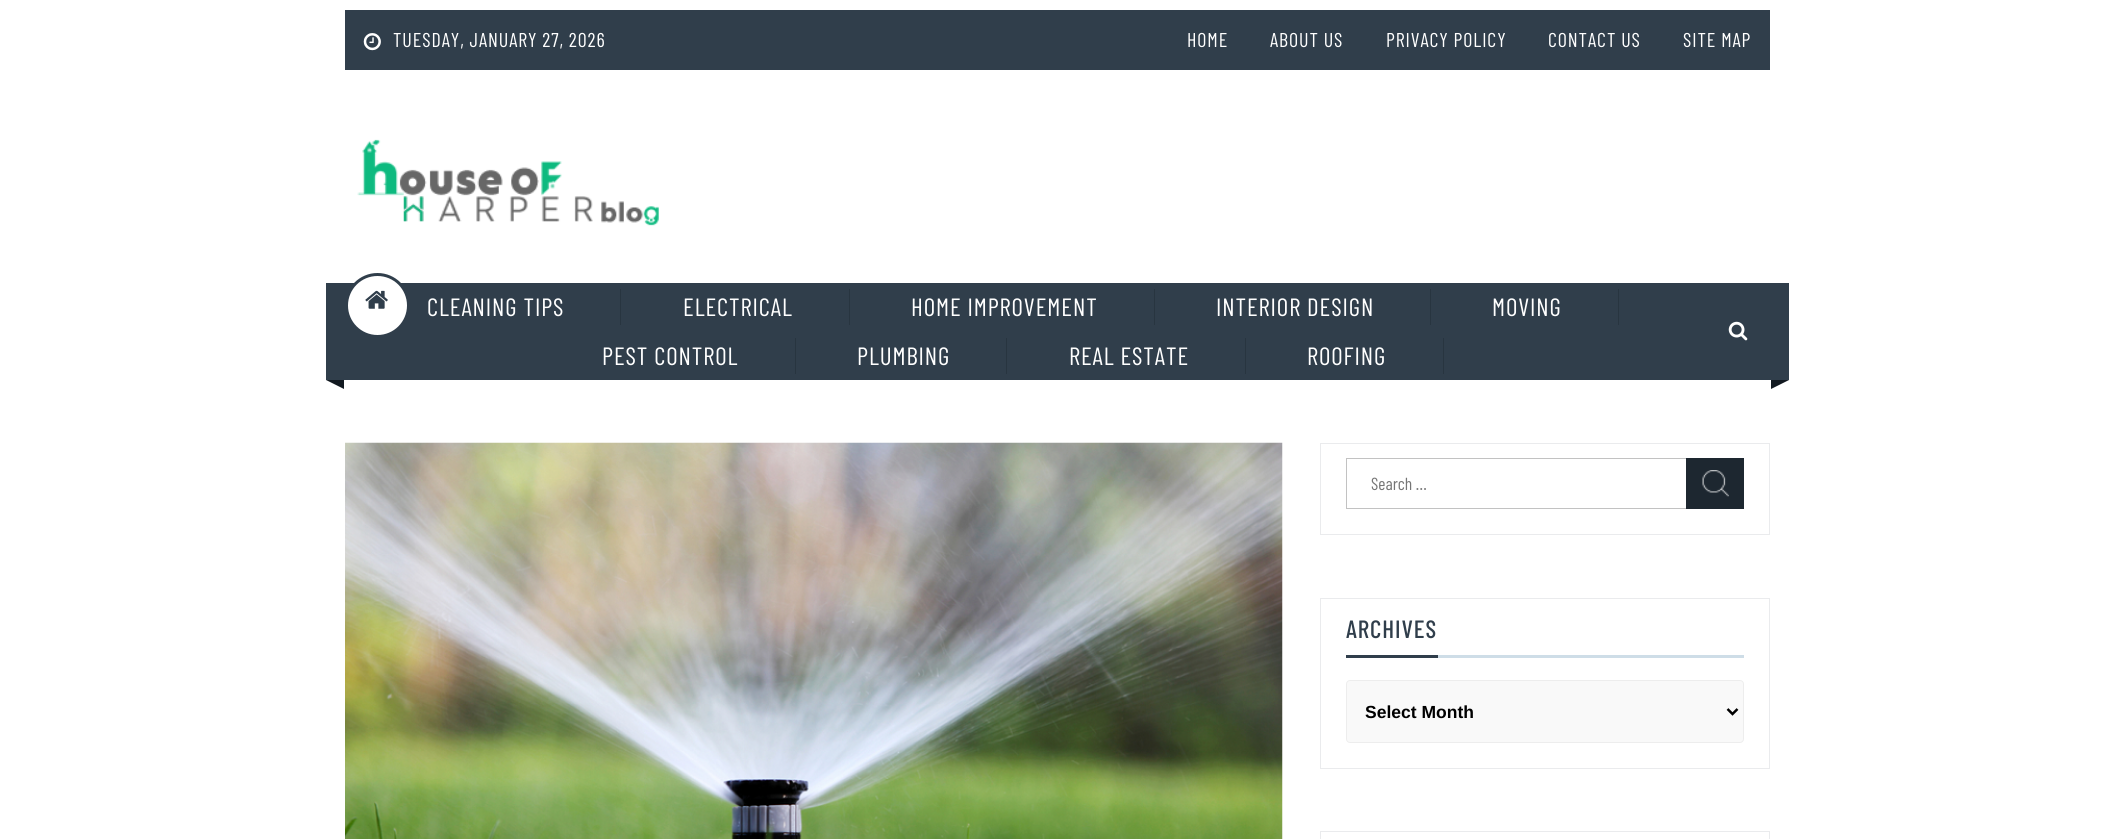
#include <cairo.h>
#include <math.h>
#include <stddef.h>

static cairo_t *ctx;

static void use_color(int r, int g, int b) {
    cairo_set_source_rgb(ctx, r / 255.0, g / 255.0, b / 255.0);
}

static void spaced_text(double x, double y, const char *s, double letter, double word) {
    cairo_move_to(ctx, x, y);
    while (*s) {
        char ch[5] = {0};
        int n = 0;
        do ch[n++] = *s++; while ((*s & 0xC0) == 0x80);
        cairo_show_text(ctx, ch);
        cairo_rel_move_to(ctx, letter + word * (*ch == ' '), 0);
    }
}

static void round_rect(double x, double y, double w, double h, double r) {
    cairo_new_sub_path(ctx);
    cairo_arc(ctx, x + w - r, y + h - r, r, 0, M_PI / 2);
    cairo_arc(ctx, x + r, y + h - r, r, M_PI / 2, M_PI);
    cairo_arc(ctx, x + r, y + r, r, M_PI, 1.5 * M_PI);
    cairo_arc(ctx, x + w - r, y + r, r, 1.5 * M_PI, 2 * M_PI);
    cairo_close_path(ctx);
}

static void picture(const char *path, double x, double y, double w, double h) {
    cairo_surface_t *image = cairo_image_surface_create_from_png(path);
    cairo_save(ctx);
    cairo_set_source_surface(ctx, image, x, y);
    cairo_rectangle(ctx, x, y, w, h);
    cairo_fill(ctx);
    cairo_restore(ctx);
    cairo_surface_destroy(image);
}

int main(void) {
    cairo_surface_t *surface = cairo_image_surface_create(CAIRO_FORMAT_RGB24, 2115, 839);
    ctx = cairo_create(surface);
    cairo_font_options_t *options = cairo_font_options_create();
    cairo_font_options_set_hint_metrics(options, CAIRO_HINT_METRICS_OFF);
    cairo_font_options_set_hint_style(options, CAIRO_HINT_STYLE_NONE);
    cairo_set_font_options(ctx, options);
    cairo_set_miter_limit(ctx, 4);
    use_color(255, 255, 255);
    cairo_paint(ctx);
    use_color(48, 62, 75);
    cairo_rectangle(ctx, 345, 10, 1425, 60);
    cairo_fill(ctx);
    picture("img1.png", 363, 33, 18, 18);
    cairo_select_font_face(ctx, "Barlow Condensed", CAIRO_FONT_SLANT_NORMAL, CAIRO_FONT_WEIGHT_NORMAL);
    cairo_set_font_size(ctx, 20);
    use_color(255, 255, 255);
    spaced_text(393, 47, "TUESDAY, JANUARY 27, 2026", 0.9, 0);
    spaced_text(1187, 47, "HOME", 0.9, 0);
    spaced_text(1270, 47, "ABOUT US", 0.9, 0);
    spaced_text(1386, 47, "PRIVACY POLICY", 0.9, 0);
    spaced_text(1548, 47, "CONTACT US", 0.9, 0);
    spaced_text(1683, 47, "SITE MAP", 0.9, 0);
    picture("img2.png", 357, 139, 302, 87);
    use_color(48, 62, 75);
    cairo_rectangle(ctx, 326, 283, 1463, 97);
    cairo_fill(ctx);
    use_color(255, 255, 255);
    cairo_arc(ctx, 377.5, 305.5, 31, 0, 2 * M_PI);
    cairo_fill_preserve(ctx);
    use_color(48, 62, 75);
    cairo_set_line_width(ctx, 3);
    cairo_stroke(ctx);
    picture("img3.png", 365, 290, 23, 19);
    use_color(40, 53, 64);
    cairo_rectangle(ctx, 620, 289, 1, 36);
    cairo_fill(ctx);
    cairo_set_font_size(ctx, 25);
    use_color(255, 255, 255);
    spaced_text(427, 316, "CLEANING TIPS", 0.9, 0);
    use_color(40, 53, 64);
    cairo_rectangle(ctx, 849, 289, 1, 36);
    cairo_fill(ctx);
    use_color(255, 255, 255);
    spaced_text(683, 316, "ELECTRICAL", 0.9, 0);
    use_color(40, 53, 64);
    cairo_rectangle(ctx, 1154, 289, 1, 36);
    cairo_fill(ctx);
    use_color(255, 255, 255);
    spaced_text(911, 316, "HOME IMPROVEMENT", 0.9, 0);
    use_color(40, 53, 64);
    cairo_rectangle(ctx, 1430, 289, 1, 36);
    cairo_fill(ctx);
    use_color(255, 255, 255);
    spaced_text(1216, 316, "INTERIOR DESIGN", 0.9, 0);
    use_color(40, 53, 64);
    cairo_rectangle(ctx, 1618, 289, 1, 36);
    cairo_fill(ctx);
    use_color(255, 255, 255);
    spaced_text(1492, 316, "MOVING", 0.9, 0);
    use_color(40, 53, 64);
    cairo_rectangle(ctx, 795, 338, 1, 36);
    cairo_fill(ctx);
    use_color(255, 255, 255);
    spaced_text(602, 365, "PEST CONTROL", 0.9, 0);
    use_color(40, 53, 64);
    cairo_rectangle(ctx, 1006, 338, 1, 36);
    cairo_fill(ctx);
    use_color(255, 255, 255);
    spaced_text(857, 365, "PLUMBING", 0.9, 0);
    use_color(40, 53, 64);
    cairo_rectangle(ctx, 1245, 338, 1, 36);
    cairo_fill(ctx);
    use_color(255, 255, 255);
    spaced_text(1069, 365, "REAL ESTATE", 0.9, 0);
    use_color(40, 53, 64);
    cairo_rectangle(ctx, 1443, 338, 1, 36);
    cairo_fill(ctx);
    use_color(255, 255, 255);
    spaced_text(1307, 365, "ROOFING", 0.9, 0);
    picture("img4.png", 1728, 321, 20, 20);
    use_color(18, 25, 32);
    cairo_new_path(ctx);
    cairo_move_to(ctx, 344, 380);
    cairo_line_to(ctx, 344, 389);
    cairo_line_to(ctx, 326, 380);
    cairo_close_path(ctx);
    cairo_fill(ctx);
    cairo_new_path(ctx);
    cairo_move_to(ctx, 1771, 389);
    cairo_line_to(ctx, 1771, 380);
    cairo_line_to(ctx, 1789, 380);
    cairo_close_path(ctx);
    cairo_fill(ctx);
    picture("img5.png", 345, 442, 938, 397);
    cairo_rectangle(ctx, 1320.5, 443.5, 449, 91);
    use_color(234, 235, 237);
    cairo_set_line_width(ctx, 1);
    cairo_stroke(ctx);
    cairo_rectangle(ctx, 1346.5, 458.5, 397, 50);
    use_color(194, 194, 194);
    cairo_stroke(ctx);
    cairo_set_font_size(ctx, 17.5);
    use_color(117, 117, 117);
    cairo_move_to(ctx, 1371, 490);
    cairo_show_text(ctx, "Search …");
    use_color(29, 39, 48);
    cairo_rectangle(ctx, 1686, 458, 58, 51);
    cairo_fill(ctx);
    picture("img6.png", 1702, 470, 27, 27);
    cairo_rectangle(ctx, 1320.5, 598.5, 449, 170);
    use_color(234, 235, 237);
    cairo_stroke(ctx);
    use_color(206, 221, 231);
    cairo_rectangle(ctx, 1438, 655, 306, 3);
    cairo_fill(ctx);
    cairo_select_font_face(ctx, "Barlow Condensed Medium", CAIRO_FONT_SLANT_NORMAL, CAIRO_FONT_WEIGHT_NORMAL);
    cairo_set_font_size(ctx, 25);
    use_color(48, 62, 75);
    spaced_text(1346, 638, "ARCHIVES", 0.9, 0);
    cairo_rectangle(ctx, 1346, 655, 92, 3);
    cairo_fill(ctx);
    use_color(249, 249, 249);
    round_rect(1346.5, 680.5, 397, 62, 3.5);
    cairo_fill_preserve(ctx);
    use_color(237, 237, 237);
    cairo_stroke(ctx);
    cairo_new_path(ctx);
    cairo_move_to(ctx, 1727.5, 709);
    cairo_line_to(ctx, 1732.5, 714);
    cairo_line_to(ctx, 1737.5, 709);
    use_color(0, 0, 0);
    cairo_set_line_width(ctx, 2.5);
    cairo_stroke(ctx);
    cairo_select_font_face(ctx, "Liberation Sans", CAIRO_FONT_SLANT_NORMAL, CAIRO_FONT_WEIGHT_BOLD);
    cairo_set_font_size(ctx, 17.5);
    cairo_move_to(ctx, 1365, 718);
    cairo_show_text(ctx, "Select Month");
    cairo_rectangle(ctx, 1320.5, 831.5, 449, 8);
    use_color(234, 235, 237);
    cairo_set_line_width(ctx, 1);
    cairo_stroke(ctx);
    cairo_surface_write_to_png(surface, "result.png");
    cairo_font_options_destroy(options);
    cairo_destroy(ctx);
    cairo_surface_destroy(surface);
    return 0;
}
